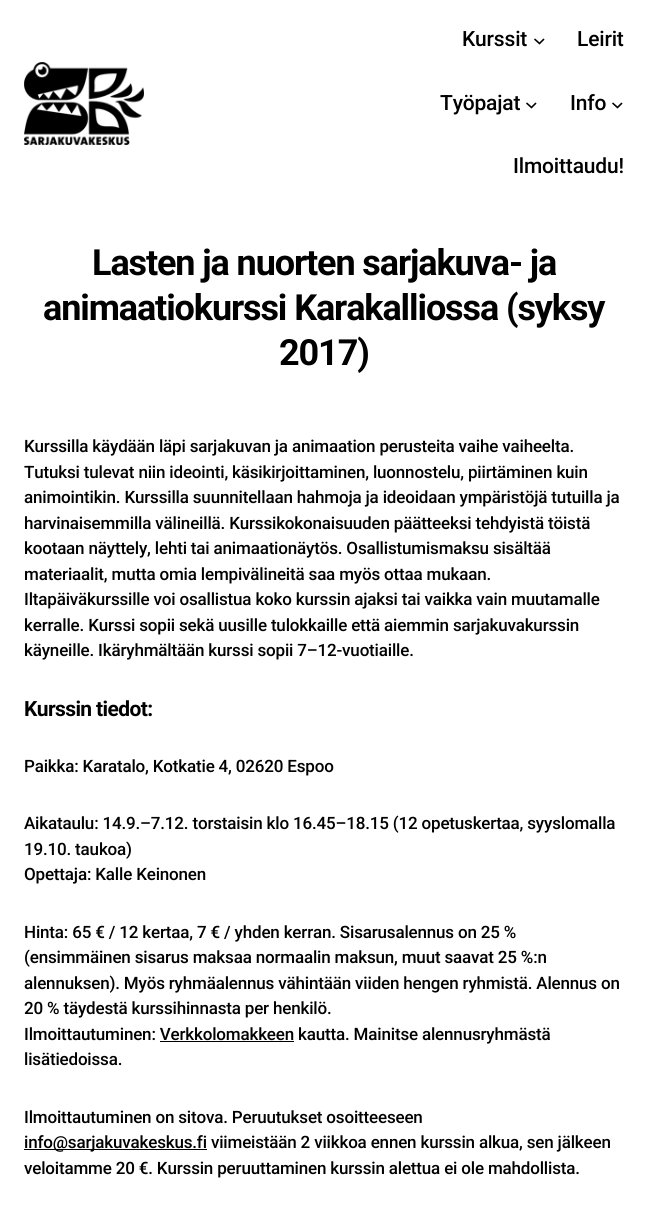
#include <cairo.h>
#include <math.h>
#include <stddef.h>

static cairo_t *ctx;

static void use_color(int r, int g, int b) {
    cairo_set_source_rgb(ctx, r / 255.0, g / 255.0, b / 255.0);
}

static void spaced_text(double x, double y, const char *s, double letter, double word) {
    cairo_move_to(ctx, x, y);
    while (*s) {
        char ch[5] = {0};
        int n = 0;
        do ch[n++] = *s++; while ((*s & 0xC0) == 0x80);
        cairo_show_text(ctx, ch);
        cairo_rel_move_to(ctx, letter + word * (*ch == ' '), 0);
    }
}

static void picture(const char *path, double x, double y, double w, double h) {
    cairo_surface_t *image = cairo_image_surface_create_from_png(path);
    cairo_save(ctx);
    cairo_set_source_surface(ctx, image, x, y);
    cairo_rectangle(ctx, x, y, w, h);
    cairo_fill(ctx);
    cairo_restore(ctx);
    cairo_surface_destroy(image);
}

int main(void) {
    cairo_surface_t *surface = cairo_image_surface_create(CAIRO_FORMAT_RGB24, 648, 1225);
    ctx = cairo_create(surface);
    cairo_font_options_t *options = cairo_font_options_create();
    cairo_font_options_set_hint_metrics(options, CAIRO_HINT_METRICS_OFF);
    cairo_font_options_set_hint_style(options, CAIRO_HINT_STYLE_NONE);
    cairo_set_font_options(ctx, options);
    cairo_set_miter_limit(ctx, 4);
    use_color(255, 255, 255);
    cairo_paint(ctx);
    picture("img1.png", 24, 62, 120, 83);
    cairo_select_font_face(ctx, "Roboto Medium", CAIRO_FONT_SLANT_NORMAL, CAIRO_FONT_WEIGHT_NORMAL);
    cairo_set_font_size(ctx, 21);
    use_color(0, 0, 0);
    spaced_text(462, 46, "Kurssit", -0.17, 0);
    cairo_new_path(ctx);
    cairo_move_to(ctx, 534.5, 39);
    cairo_line_to(ctx, 539.5, 43.5);
    cairo_line_to(ctx, 544, 39);
    cairo_set_line_width(ctx, 1.6);
    cairo_stroke(ctx);
    spaced_text(577, 46, "Leirit", -0.17, 0);
    spaced_text(440, 110, "Työpajat", -0.17, 0);
    cairo_new_path(ctx);
    cairo_move_to(ctx, 526.5, 103);
    cairo_line_to(ctx, 531.5, 107.5);
    cairo_line_to(ctx, 536, 103);
    cairo_stroke(ctx);
    spaced_text(570, 110, "Info", -0.17, 0);
    cairo_new_path(ctx);
    cairo_move_to(ctx, 612.5, 103);
    cairo_line_to(ctx, 617.5, 107.5);
    cairo_line_to(ctx, 622, 103);
    cairo_stroke(ctx);
    spaced_text(513, 173, "Ilmoittaudu!", -0.17, 0);
    cairo_select_font_face(ctx, "Roboto", CAIRO_FONT_SLANT_NORMAL, CAIRO_FONT_WEIGHT_BOLD);
    cairo_set_font_size(ctx, 36);
    spaced_text(92, 275, "Lasten ja nuorten sarjakuva- ja", -1.1, 0);
    spaced_text(43, 320, "animaatiokurssi Karakalliossa (syksy", -1.1, 0);
    spaced_text(279, 365, "2017)", -1.1, 0);
    cairo_select_font_face(ctx, "Roboto Medium", CAIRO_FONT_SLANT_NORMAL, CAIRO_FONT_WEIGHT_NORMAL);
    cairo_set_font_size(ctx, 17);
    spaced_text(24, 452, "Kurssilla käydään läpi sarjakuvan ja animaation perusteita vaihe vaiheelta.", -0.17, 0);
    spaced_text(24, 478, "Tutuksi tulevat niin ideointi, käsikirjoittaminen, luonnostelu, piirtäminen kuin", -0.17, 0);
    spaced_text(24, 503, "animointikin. Kurssilla suunnitellaan hahmoja ja ideoidaan ympäristöjä tutuilla ja", -0.17, 0);
    spaced_text(24, 529, "harvinaisemmilla välineillä. Kurssikokonaisuuden päätteeksi tehdyistä töistä", -0.17, 0);
    spaced_text(24, 554, "kootaan näyttely, lehti tai animaationäytös. Osallistumismaksu sisältää", -0.17, 0);
    spaced_text(24, 580, "materiaalit, mutta omia lempivälineitä saa myös ottaa mukaan.", -0.17, 0);
    spaced_text(24, 605, "Iltapäiväkurssille voi osallistua koko kurssin ajaksi tai vaikka vain muutamalle", -0.17, 0);
    spaced_text(24, 631, "kerralle. Kurssi sopii sekä uusille tulokkaille että aiemmin sarjakuvakurssin", -0.17, 0);
    spaced_text(24, 656, "käyneille. Ikäryhmältään kurssi sopii 7–12-vuotiaille.", -0.17, 0);
    cairo_select_font_face(ctx, "Roboto", CAIRO_FONT_SLANT_NORMAL, CAIRO_FONT_WEIGHT_BOLD);
    cairo_set_font_size(ctx, 21);
    spaced_text(24, 716, "Kurssin tiedot:", -0.6, 0);
    cairo_select_font_face(ctx, "Roboto Medium", CAIRO_FONT_SLANT_NORMAL, CAIRO_FONT_WEIGHT_NORMAL);
    cairo_set_font_size(ctx, 17);
    spaced_text(24, 772, "Paikka: Karatalo, Kotkatie 4, 02620 Espoo", -0.17, 0);
    spaced_text(24, 829, "Aikataulu: 14.9.–7.12. torstaisin klo 16.45–18.15 (12 opetuskertaa, syyslomalla", -0.17, 0);
    spaced_text(24, 855, "19.10. taukoa)", -0.17, 0);
    spaced_text(24, 880, "Opettaja: Kalle Keinonen", -0.17, 0);
    spaced_text(24, 938, "Hinta: 65 € / 12 kertaa, 7 € / yhden kerran. Sisarusalennus on 25 %", -0.17, 0);
    spaced_text(24, 963, "(ensimmäinen sisarus maksaa normaalin maksun, muut saavat 25 %:n", -0.17, 0);
    spaced_text(24, 989, "alennuksen). Myös ryhmäalennus vähintään viiden hengen ryhmistä. Alennus on", -0.17, 0);
    spaced_text(24, 1014, "20 % täydestä kurssihinnasta per henkilö.", -0.17, 0);
    spaced_text(24, 1040, "Ilmoittautuminen: Verkkolomakkeen kautta. Mainitse alennusryhmästä", -0.17, 0);
    cairo_rectangle(ctx, 160, 1041, 134, 1);
    cairo_fill(ctx);
    spaced_text(24, 1065, "lisätiedoissa.", -0.17, 0);
    spaced_text(24, 1123, "Ilmoittautuminen on sitova. Peruutukset osoitteeseen", -0.17, 0);
    cairo_rectangle(ctx, 24, 1149, 183, 1);
    cairo_fill(ctx);
    spaced_text(24, 1148, "info@sarjakuvakeskus.fi viimeistään 2 viikkoa ennen kurssin alkua, sen jälkeen", -0.17, 0);
    spaced_text(24, 1174, "veloitamme 20 €. Kurssin peruuttaminen kurssin alettua ei ole mahdollista.", -0.17, 0);
    cairo_surface_write_to_png(surface, "result.png");
    cairo_font_options_destroy(options);
    cairo_destroy(ctx);
    cairo_surface_destroy(surface);
    return 0;
}
